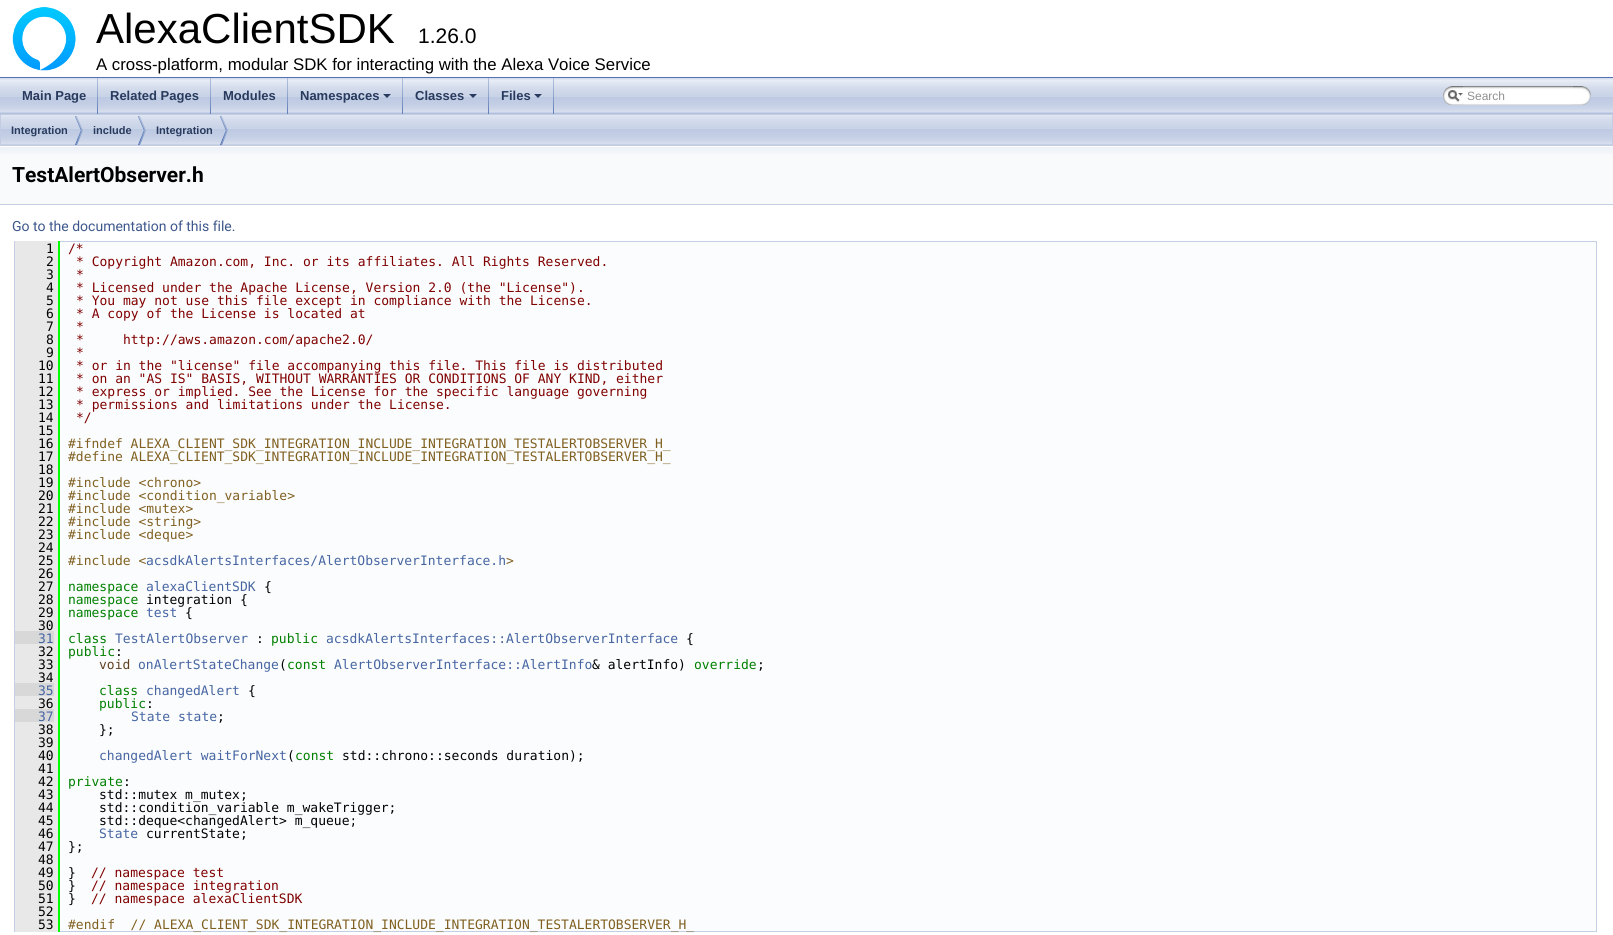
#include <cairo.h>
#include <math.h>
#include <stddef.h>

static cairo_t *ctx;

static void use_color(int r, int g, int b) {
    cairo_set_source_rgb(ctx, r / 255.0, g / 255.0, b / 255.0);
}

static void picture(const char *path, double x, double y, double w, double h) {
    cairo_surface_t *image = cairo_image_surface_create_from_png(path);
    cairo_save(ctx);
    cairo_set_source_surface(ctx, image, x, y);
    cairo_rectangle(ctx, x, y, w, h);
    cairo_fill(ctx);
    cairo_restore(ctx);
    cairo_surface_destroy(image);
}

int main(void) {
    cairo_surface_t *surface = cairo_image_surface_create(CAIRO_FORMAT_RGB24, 1613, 935);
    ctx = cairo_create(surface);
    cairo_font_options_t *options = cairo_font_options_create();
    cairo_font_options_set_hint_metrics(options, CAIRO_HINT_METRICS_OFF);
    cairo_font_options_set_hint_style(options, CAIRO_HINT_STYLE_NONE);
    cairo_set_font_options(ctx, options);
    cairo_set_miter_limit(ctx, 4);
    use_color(255, 255, 255);
    cairo_paint(ctx);
    use_color(83, 115, 180);
    cairo_rectangle(ctx, 0, 77, 1613, 1);
    cairo_fill(ctx);
    picture("img1.png", 12, 7, 64, 64);
    cairo_select_font_face(ctx, "Liberation Sans", CAIRO_FONT_SLANT_NORMAL, CAIRO_FONT_WEIGHT_NORMAL);
    cairo_set_font_size(ctx, 42);
    use_color(0, 0, 0);
    cairo_move_to(ctx, 96, 43);
    cairo_show_text(ctx, "AlexaClientSDK");
    cairo_set_font_size(ctx, 21);
    cairo_move_to(ctx, 418, 43);
    cairo_show_text(ctx, "1.26.0");
    cairo_set_font_size(ctx, 16.8);
    cairo_move_to(ctx, 96, 70);
    cairo_show_text(ctx, "A cross-platform, modular SDK for interacting with the Alexa Voice Service");
    picture("img2.png", 0, 78, 1613, 36);
    picture("img3.png", 97, 78, 1, 36);
    cairo_select_font_face(ctx, "Liberation Sans", CAIRO_FONT_SLANT_NORMAL, CAIRO_FONT_WEIGHT_BOLD);
    cairo_set_font_size(ctx, 13);
    use_color(40, 58, 93);
    cairo_move_to(ctx, 22, 100);
    cairo_show_text(ctx, "Main Page");
    picture("img3.png", 210, 78, 1, 36);
    cairo_move_to(ctx, 110, 100);
    cairo_show_text(ctx, "Related Pages");
    picture("img3.png", 287, 78, 1, 36);
    cairo_move_to(ctx, 223, 100);
    cairo_show_text(ctx, "Modules");
    picture("img3.png", 402, 78, 1, 36);
    cairo_move_to(ctx, 300, 100);
    cairo_show_text(ctx, "Namespaces");
    cairo_new_path(ctx);
    cairo_move_to(ctx, 383, 94);
    cairo_line_to(ctx, 391, 94);
    cairo_line_to(ctx, 387, 98);
    cairo_close_path(ctx);
    cairo_fill(ctx);
    picture("img3.png", 488, 78, 1, 36);
    cairo_move_to(ctx, 415, 100);
    cairo_show_text(ctx, "Classes");
    cairo_new_path(ctx);
    cairo_move_to(ctx, 469, 94);
    cairo_line_to(ctx, 477, 94);
    cairo_line_to(ctx, 473, 98);
    cairo_close_path(ctx);
    cairo_fill(ctx);
    picture("img3.png", 553, 78, 1, 36);
    cairo_move_to(ctx, 501, 100);
    cairo_show_text(ctx, "Files");
    cairo_new_path(ctx);
    cairo_move_to(ctx, 534, 94);
    cairo_line_to(ctx, 542, 94);
    cairo_line_to(ctx, 538, 98);
    cairo_close_path(ctx);
    cairo_fill(ctx);
    picture("img4.png", 1443, 86, 20, 19);
    picture("img5.png", 1448, 90, 15, 12);
    picture("img6.png", 1463, 86, 110, 19);
    cairo_select_font_face(ctx, "Liberation Sans", CAIRO_FONT_SLANT_NORMAL, CAIRO_FONT_WEIGHT_NORMAL);
    cairo_set_font_size(ctx, 12);
    use_color(144, 144, 144);
    cairo_move_to(ctx, 1467, 100);
    cairo_show_text(ctx, "Search");
    picture("img7.png", 1573, 86, 18, 19);
    picture("img8.png", 1, 115, 1611, 30);
    cairo_rectangle(ctx, 0.5, 114.5, 1612, 31);
    use_color(194, 205, 228);
    cairo_set_line_width(ctx, 1);
    cairo_stroke(ctx);
    picture("img9.png", 75, 116, 8, 29);
    cairo_select_font_face(ctx, "Liberation Sans", CAIRO_FONT_SLANT_NORMAL, CAIRO_FONT_WEIGHT_BOLD);
    cairo_set_font_size(ctx, 11);
    use_color(40, 58, 93);
    cairo_move_to(ctx, 11, 134);
    cairo_show_text(ctx, "Integration");
    picture("img9.png", 138, 116, 8, 29);
    cairo_move_to(ctx, 93, 134);
    cairo_show_text(ctx, "include");
    picture("img9.png", 220, 116, 8, 29);
    cairo_move_to(ctx, 156, 134);
    cairo_show_text(ctx, "Integration");
    use_color(249, 250, 252);
    cairo_rectangle(ctx, 0, 154, 1613, 50);
    cairo_fill(ctx);
    picture("img10.png", 0, 146, 1613, 8);
    use_color(196, 207, 229);
    cairo_rectangle(ctx, 0, 204, 1613, 1);
    cairo_fill(ctx);
    cairo_select_font_face(ctx, "Roboto", CAIRO_FONT_SLANT_NORMAL, CAIRO_FONT_WEIGHT_BOLD);
    cairo_set_font_size(ctx, 21);
    use_color(0, 0, 0);
    cairo_move_to(ctx, 12, 182);
    cairo_show_text(ctx, "TestAlertObserver.h");
    cairo_select_font_face(ctx, "Roboto", CAIRO_FONT_SLANT_NORMAL, CAIRO_FONT_WEIGHT_NORMAL);
    cairo_set_font_size(ctx, 14);
    use_color(61, 87, 140);
    cairo_move_to(ctx, 12, 231);
    cairo_show_text(ctx, "Go to the documentation of this file.");
    use_color(251, 252, 253);
    cairo_rectangle(ctx, 60, 242, 1536, 689);
    cairo_fill(ctx);
    cairo_rectangle(ctx, 14.5, 241.5, 1582, 690);
    use_color(196, 207, 229);
    cairo_stroke(ctx);
    use_color(232, 232, 232);
    cairo_rectangle(ctx, 15, 241, 43, 390);
    cairo_fill(ctx);
    cairo_select_font_face(ctx, "DejaVu Sans Mono", CAIRO_FONT_SLANT_NORMAL, CAIRO_FONT_WEIGHT_NORMAL);
    cairo_set_font_size(ctx, 13);
    use_color(0, 0, 0);
    cairo_move_to(ctx, 46, 253);
    cairo_show_text(ctx, "1");
    use_color(0, 255, 0);
    cairo_rectangle(ctx, 58, 241, 2, 691);
    cairo_fill(ctx);
    use_color(128, 0, 0);
    cairo_move_to(ctx, 68, 253);
    cairo_show_text(ctx, "/*");
    use_color(0, 0, 0);
    cairo_move_to(ctx, 46, 266);
    cairo_show_text(ctx, "2");
    use_color(128, 0, 0);
    cairo_move_to(ctx, 76, 266);
    cairo_show_text(ctx, "* Copyright Amazon.com, Inc. or its affiliates. All Rights Reserved.");
    use_color(0, 0, 0);
    cairo_move_to(ctx, 46, 279);
    cairo_show_text(ctx, "3");
    use_color(128, 0, 0);
    cairo_move_to(ctx, 76, 279);
    cairo_show_text(ctx, "*");
    use_color(0, 0, 0);
    cairo_move_to(ctx, 46, 292);
    cairo_show_text(ctx, "4");
    use_color(128, 0, 0);
    cairo_move_to(ctx, 76, 292);
    cairo_show_text(ctx, "* Licensed under the Apache License, Version 2.0 (the \"License\").");
    use_color(0, 0, 0);
    cairo_move_to(ctx, 46, 305);
    cairo_show_text(ctx, "5");
    use_color(128, 0, 0);
    cairo_move_to(ctx, 76, 305);
    cairo_show_text(ctx, "* You may not use this file except in compliance with the License.");
    use_color(0, 0, 0);
    cairo_move_to(ctx, 46, 318);
    cairo_show_text(ctx, "6");
    use_color(128, 0, 0);
    cairo_move_to(ctx, 76, 318);
    cairo_show_text(ctx, "* A copy of the License is located at");
    use_color(0, 0, 0);
    cairo_move_to(ctx, 46, 331);
    cairo_show_text(ctx, "7");
    use_color(128, 0, 0);
    cairo_move_to(ctx, 76, 331);
    cairo_show_text(ctx, "*");
    use_color(0, 0, 0);
    cairo_move_to(ctx, 46, 344);
    cairo_show_text(ctx, "8");
    use_color(128, 0, 0);
    cairo_move_to(ctx, 76, 344);
    cairo_show_text(ctx, "*     http://aws.amazon.com/apache2.0/");
    use_color(0, 0, 0);
    cairo_move_to(ctx, 46, 357);
    cairo_show_text(ctx, "9");
    use_color(128, 0, 0);
    cairo_move_to(ctx, 76, 357);
    cairo_show_text(ctx, "*");
    use_color(0, 0, 0);
    cairo_move_to(ctx, 38, 370);
    cairo_show_text(ctx, "10");
    use_color(128, 0, 0);
    cairo_move_to(ctx, 76, 370);
    cairo_show_text(ctx, "* or in the \"license\" file accompanying this file. This file is distributed");
    use_color(0, 0, 0);
    cairo_move_to(ctx, 38, 383);
    cairo_show_text(ctx, "11");
    use_color(128, 0, 0);
    cairo_move_to(ctx, 76, 383);
    cairo_show_text(ctx, "* on an \"AS IS\" BASIS, WITHOUT WARRANTIES OR CONDITIONS OF ANY KIND, either");
    use_color(0, 0, 0);
    cairo_move_to(ctx, 38, 396);
    cairo_show_text(ctx, "12");
    use_color(128, 0, 0);
    cairo_move_to(ctx, 76, 396);
    cairo_show_text(ctx, "* express or implied. See the License for the specific language governing");
    use_color(0, 0, 0);
    cairo_move_to(ctx, 38, 409);
    cairo_show_text(ctx, "13");
    use_color(128, 0, 0);
    cairo_move_to(ctx, 76, 409);
    cairo_show_text(ctx, "* permissions and limitations under the License.");
    use_color(0, 0, 0);
    cairo_move_to(ctx, 38, 422);
    cairo_show_text(ctx, "14");
    use_color(128, 0, 0);
    cairo_move_to(ctx, 76, 422);
    cairo_show_text(ctx, "*/");
    use_color(0, 0, 0);
    cairo_move_to(ctx, 38, 435);
    cairo_show_text(ctx, "15");
    cairo_move_to(ctx, 38, 448);
    cairo_show_text(ctx, "16");
    use_color(128, 96, 32);
    cairo_move_to(ctx, 68, 448);
    cairo_show_text(ctx, "#ifndef ALEXA_CLIENT_SDK_INTEGRATION_INCLUDE_INTEGRATION_TESTALERTOBSERVER_H_");
    use_color(0, 0, 0);
    cairo_move_to(ctx, 38, 461);
    cairo_show_text(ctx, "17");
    use_color(128, 96, 32);
    cairo_move_to(ctx, 68, 461);
    cairo_show_text(ctx, "#define ALEXA_CLIENT_SDK_INTEGRATION_INCLUDE_INTEGRATION_TESTALERTOBSERVER_H_");
    use_color(0, 0, 0);
    cairo_move_to(ctx, 38, 474);
    cairo_show_text(ctx, "18");
    cairo_move_to(ctx, 38, 487);
    cairo_show_text(ctx, "19");
    use_color(128, 96, 32);
    cairo_move_to(ctx, 68, 487);
    cairo_show_text(ctx, "#include <chrono>");
    use_color(0, 0, 0);
    cairo_move_to(ctx, 38, 500);
    cairo_show_text(ctx, "20");
    use_color(128, 96, 32);
    cairo_move_to(ctx, 68, 500);
    cairo_show_text(ctx, "#include <condition_variable>");
    use_color(0, 0, 0);
    cairo_move_to(ctx, 38, 513);
    cairo_show_text(ctx, "21");
    use_color(128, 96, 32);
    cairo_move_to(ctx, 68, 513);
    cairo_show_text(ctx, "#include <mutex>");
    use_color(0, 0, 0);
    cairo_move_to(ctx, 38, 526);
    cairo_show_text(ctx, "22");
    use_color(128, 96, 32);
    cairo_move_to(ctx, 68, 526);
    cairo_show_text(ctx, "#include <string>");
    use_color(0, 0, 0);
    cairo_move_to(ctx, 38, 539);
    cairo_show_text(ctx, "23");
    use_color(128, 96, 32);
    cairo_move_to(ctx, 68, 539);
    cairo_show_text(ctx, "#include <deque>");
    use_color(0, 0, 0);
    cairo_move_to(ctx, 38, 552);
    cairo_show_text(ctx, "24");
    cairo_move_to(ctx, 38, 565);
    cairo_show_text(ctx, "25");
    use_color(128, 96, 32);
    cairo_move_to(ctx, 68, 565);
    cairo_show_text(ctx, "#include <");
    use_color(70, 101, 162);
    cairo_move_to(ctx, 146, 565);
    cairo_show_text(ctx, "acsdkAlertsInterfaces/AlertObserverInterface.h");
    use_color(128, 96, 32);
    cairo_move_to(ctx, 506, 565);
    cairo_show_text(ctx, ">");
    use_color(0, 0, 0);
    cairo_move_to(ctx, 38, 578);
    cairo_show_text(ctx, "26");
    cairo_move_to(ctx, 38, 591);
    cairo_show_text(ctx, "27");
    use_color(0, 128, 0);
    cairo_move_to(ctx, 68, 591);
    cairo_show_text(ctx, "namespace");
    use_color(70, 101, 162);
    cairo_move_to(ctx, 146, 591);
    cairo_show_text(ctx, "alexaClientSDK");
    use_color(0, 0, 0);
    cairo_move_to(ctx, 264, 591);
    cairo_show_text(ctx, "{");
    cairo_move_to(ctx, 38, 604);
    cairo_show_text(ctx, "28");
    use_color(0, 128, 0);
    cairo_move_to(ctx, 68, 604);
    cairo_show_text(ctx, "namespace");
    use_color(0, 0, 0);
    cairo_move_to(ctx, 146, 604);
    cairo_show_text(ctx, "integration {");
    cairo_move_to(ctx, 38, 617);
    cairo_show_text(ctx, "29");
    use_color(0, 128, 0);
    cairo_move_to(ctx, 68, 617);
    cairo_show_text(ctx, "namespace");
    use_color(70, 101, 162);
    cairo_move_to(ctx, 146, 617);
    cairo_show_text(ctx, "test");
    use_color(0, 0, 0);
    cairo_move_to(ctx, 185, 617);
    cairo_show_text(ctx, "{");
    cairo_move_to(ctx, 38, 630);
    cairo_show_text(ctx, "30");
    use_color(216, 216, 216);
    cairo_rectangle(ctx, 15, 631, 39, 13);
    cairo_fill(ctx);
    use_color(70, 101, 162);
    cairo_move_to(ctx, 38, 643);
    cairo_show_text(ctx, "31");
    use_color(232, 232, 232);
    cairo_rectangle(ctx, 54, 631, 4, 13);
    cairo_fill(ctx);
    use_color(0, 128, 0);
    cairo_move_to(ctx, 68, 643);
    cairo_show_text(ctx, "class");
    use_color(70, 101, 162);
    cairo_move_to(ctx, 115, 643);
    cairo_show_text(ctx, "TestAlertObserver");
    use_color(0, 0, 0);
    cairo_move_to(ctx, 256, 643);
    cairo_show_text(ctx, ":");
    use_color(0, 128, 0);
    cairo_move_to(ctx, 271, 643);
    cairo_show_text(ctx, "public");
    use_color(70, 101, 162);
    cairo_move_to(ctx, 326, 643);
    cairo_show_text(ctx, "acsdkAlertsInterfaces::AlertObserverInterface");
    use_color(0, 0, 0);
    cairo_move_to(ctx, 686, 643);
    cairo_show_text(ctx, "{");
    use_color(232, 232, 232);
    cairo_rectangle(ctx, 15, 644, 43, 39);
    cairo_fill(ctx);
    use_color(0, 0, 0);
    cairo_move_to(ctx, 38, 656);
    cairo_show_text(ctx, "32");
    use_color(0, 128, 0);
    cairo_move_to(ctx, 68, 656);
    cairo_show_text(ctx, "public");
    use_color(0, 0, 0);
    cairo_move_to(ctx, 115, 656);
    cairo_show_text(ctx, ":");
    cairo_move_to(ctx, 38, 669);
    cairo_show_text(ctx, "33");
    use_color(96, 64, 32);
    cairo_move_to(ctx, 99, 669);
    cairo_show_text(ctx, "void");
    use_color(70, 101, 162);
    cairo_move_to(ctx, 138, 669);
    cairo_show_text(ctx, "onAlertStateChange");
    use_color(0, 0, 0);
    cairo_move_to(ctx, 279, 669);
    cairo_show_text(ctx, "(");
    use_color(0, 128, 0);
    cairo_move_to(ctx, 287, 669);
    cairo_show_text(ctx, "const");
    use_color(70, 101, 162);
    cairo_move_to(ctx, 334, 669);
    cairo_show_text(ctx, "AlertObserverInterface::AlertInfo");
    use_color(0, 0, 0);
    cairo_move_to(ctx, 592, 669);
    cairo_show_text(ctx, "& alertInfo)");
    use_color(0, 128, 0);
    cairo_move_to(ctx, 694, 669);
    cairo_show_text(ctx, "override");
    use_color(0, 0, 0);
    cairo_move_to(ctx, 757, 669);
    cairo_show_text(ctx, ";");
    cairo_move_to(ctx, 38, 682);
    cairo_show_text(ctx, "34");
    use_color(216, 216, 216);
    cairo_rectangle(ctx, 15, 683, 39, 13);
    cairo_fill(ctx);
    use_color(70, 101, 162);
    cairo_move_to(ctx, 38, 695);
    cairo_show_text(ctx, "35");
    use_color(232, 232, 232);
    cairo_rectangle(ctx, 54, 683, 4, 13);
    cairo_fill(ctx);
    use_color(0, 128, 0);
    cairo_move_to(ctx, 99, 695);
    cairo_show_text(ctx, "class");
    use_color(70, 101, 162);
    cairo_move_to(ctx, 146, 695);
    cairo_show_text(ctx, "changedAlert");
    use_color(0, 0, 0);
    cairo_move_to(ctx, 248, 695);
    cairo_show_text(ctx, "{");
    use_color(232, 232, 232);
    cairo_rectangle(ctx, 15, 696, 43, 13);
    cairo_fill(ctx);
    use_color(0, 0, 0);
    cairo_move_to(ctx, 38, 708);
    cairo_show_text(ctx, "36");
    use_color(0, 128, 0);
    cairo_move_to(ctx, 99, 708);
    cairo_show_text(ctx, "public");
    use_color(0, 0, 0);
    cairo_move_to(ctx, 146, 708);
    cairo_show_text(ctx, ":");
    use_color(216, 216, 216);
    cairo_rectangle(ctx, 15, 709, 39, 13);
    cairo_fill(ctx);
    use_color(70, 101, 162);
    cairo_move_to(ctx, 38, 721);
    cairo_show_text(ctx, "37");
    use_color(232, 232, 232);
    cairo_rectangle(ctx, 54, 709, 4, 13);
    cairo_fill(ctx);
    use_color(70, 101, 162);
    cairo_move_to(ctx, 131, 721);
    cairo_show_text(ctx, "State state");
    use_color(0, 0, 0);
    cairo_move_to(ctx, 217, 721);
    cairo_show_text(ctx, ";");
    use_color(232, 232, 232);
    cairo_rectangle(ctx, 15, 722, 43, 210);
    cairo_fill(ctx);
    use_color(0, 0, 0);
    cairo_move_to(ctx, 38, 734);
    cairo_show_text(ctx, "38");
    cairo_move_to(ctx, 99, 734);
    cairo_show_text(ctx, "};");
    cairo_move_to(ctx, 38, 747);
    cairo_show_text(ctx, "39");
    cairo_move_to(ctx, 38, 760);
    cairo_show_text(ctx, "40");
    use_color(70, 101, 162);
    cairo_move_to(ctx, 99, 760);
    cairo_show_text(ctx, "changedAlert waitForNext");
    use_color(0, 0, 0);
    cairo_move_to(ctx, 287, 760);
    cairo_show_text(ctx, "(");
    use_color(0, 128, 0);
    cairo_move_to(ctx, 295, 760);
    cairo_show_text(ctx, "const");
    use_color(0, 0, 0);
    cairo_move_to(ctx, 342, 760);
    cairo_show_text(ctx, "std::chrono::seconds duration);");
    cairo_move_to(ctx, 38, 773);
    cairo_show_text(ctx, "41");
    cairo_move_to(ctx, 38, 786);
    cairo_show_text(ctx, "42");
    use_color(0, 128, 0);
    cairo_move_to(ctx, 68, 786);
    cairo_show_text(ctx, "private");
    use_color(0, 0, 0);
    cairo_move_to(ctx, 123, 786);
    cairo_show_text(ctx, ":");
    cairo_move_to(ctx, 38, 799);
    cairo_show_text(ctx, "43");
    cairo_move_to(ctx, 99, 799);
    cairo_show_text(ctx, "std::mutex m_mutex;");
    cairo_move_to(ctx, 38, 812);
    cairo_show_text(ctx, "44");
    cairo_move_to(ctx, 99, 812);
    cairo_show_text(ctx, "std::condition_variable m_wakeTrigger;");
    cairo_move_to(ctx, 38, 825);
    cairo_show_text(ctx, "45");
    cairo_move_to(ctx, 99, 825);
    cairo_show_text(ctx, "std::deque<changedAlert> m_queue;");
    cairo_move_to(ctx, 38, 838);
    cairo_show_text(ctx, "46");
    use_color(70, 101, 162);
    cairo_move_to(ctx, 99, 838);
    cairo_show_text(ctx, "State");
    use_color(0, 0, 0);
    cairo_move_to(ctx, 146, 838);
    cairo_show_text(ctx, "currentState;");
    cairo_move_to(ctx, 38, 851);
    cairo_show_text(ctx, "47");
    cairo_move_to(ctx, 68, 851);
    cairo_show_text(ctx, "};");
    cairo_move_to(ctx, 38, 864);
    cairo_show_text(ctx, "48");
    cairo_move_to(ctx, 38, 877);
    cairo_show_text(ctx, "49");
    cairo_move_to(ctx, 68, 877);
    cairo_show_text(ctx, "}");
    use_color(128, 0, 0);
    cairo_move_to(ctx, 91, 877);
    cairo_show_text(ctx, "// namespace test");
    use_color(0, 0, 0);
    cairo_move_to(ctx, 38, 890);
    cairo_show_text(ctx, "50");
    cairo_move_to(ctx, 68, 890);
    cairo_show_text(ctx, "}");
    use_color(128, 0, 0);
    cairo_move_to(ctx, 91, 890);
    cairo_show_text(ctx, "// namespace integration");
    use_color(0, 0, 0);
    cairo_move_to(ctx, 38, 903);
    cairo_show_text(ctx, "51");
    cairo_move_to(ctx, 68, 903);
    cairo_show_text(ctx, "}");
    use_color(128, 0, 0);
    cairo_move_to(ctx, 91, 903);
    cairo_show_text(ctx, "// namespace alexaClientSDK");
    use_color(0, 0, 0);
    cairo_move_to(ctx, 38, 916);
    cairo_show_text(ctx, "52");
    cairo_move_to(ctx, 38, 929);
    cairo_show_text(ctx, "53");
    use_color(128, 96, 32);
    cairo_move_to(ctx, 68, 929);
    cairo_show_text(ctx, "#endif  // ALEXA_CLIENT_SDK_INTEGRATION_INCLUDE_INTEGRATION_TESTALERTOBSERVER_H_");
    cairo_surface_write_to_png(surface, "result.png");
    cairo_font_options_destroy(options);
    cairo_destroy(ctx);
    cairo_surface_destroy(surface);
    return 0;
}
